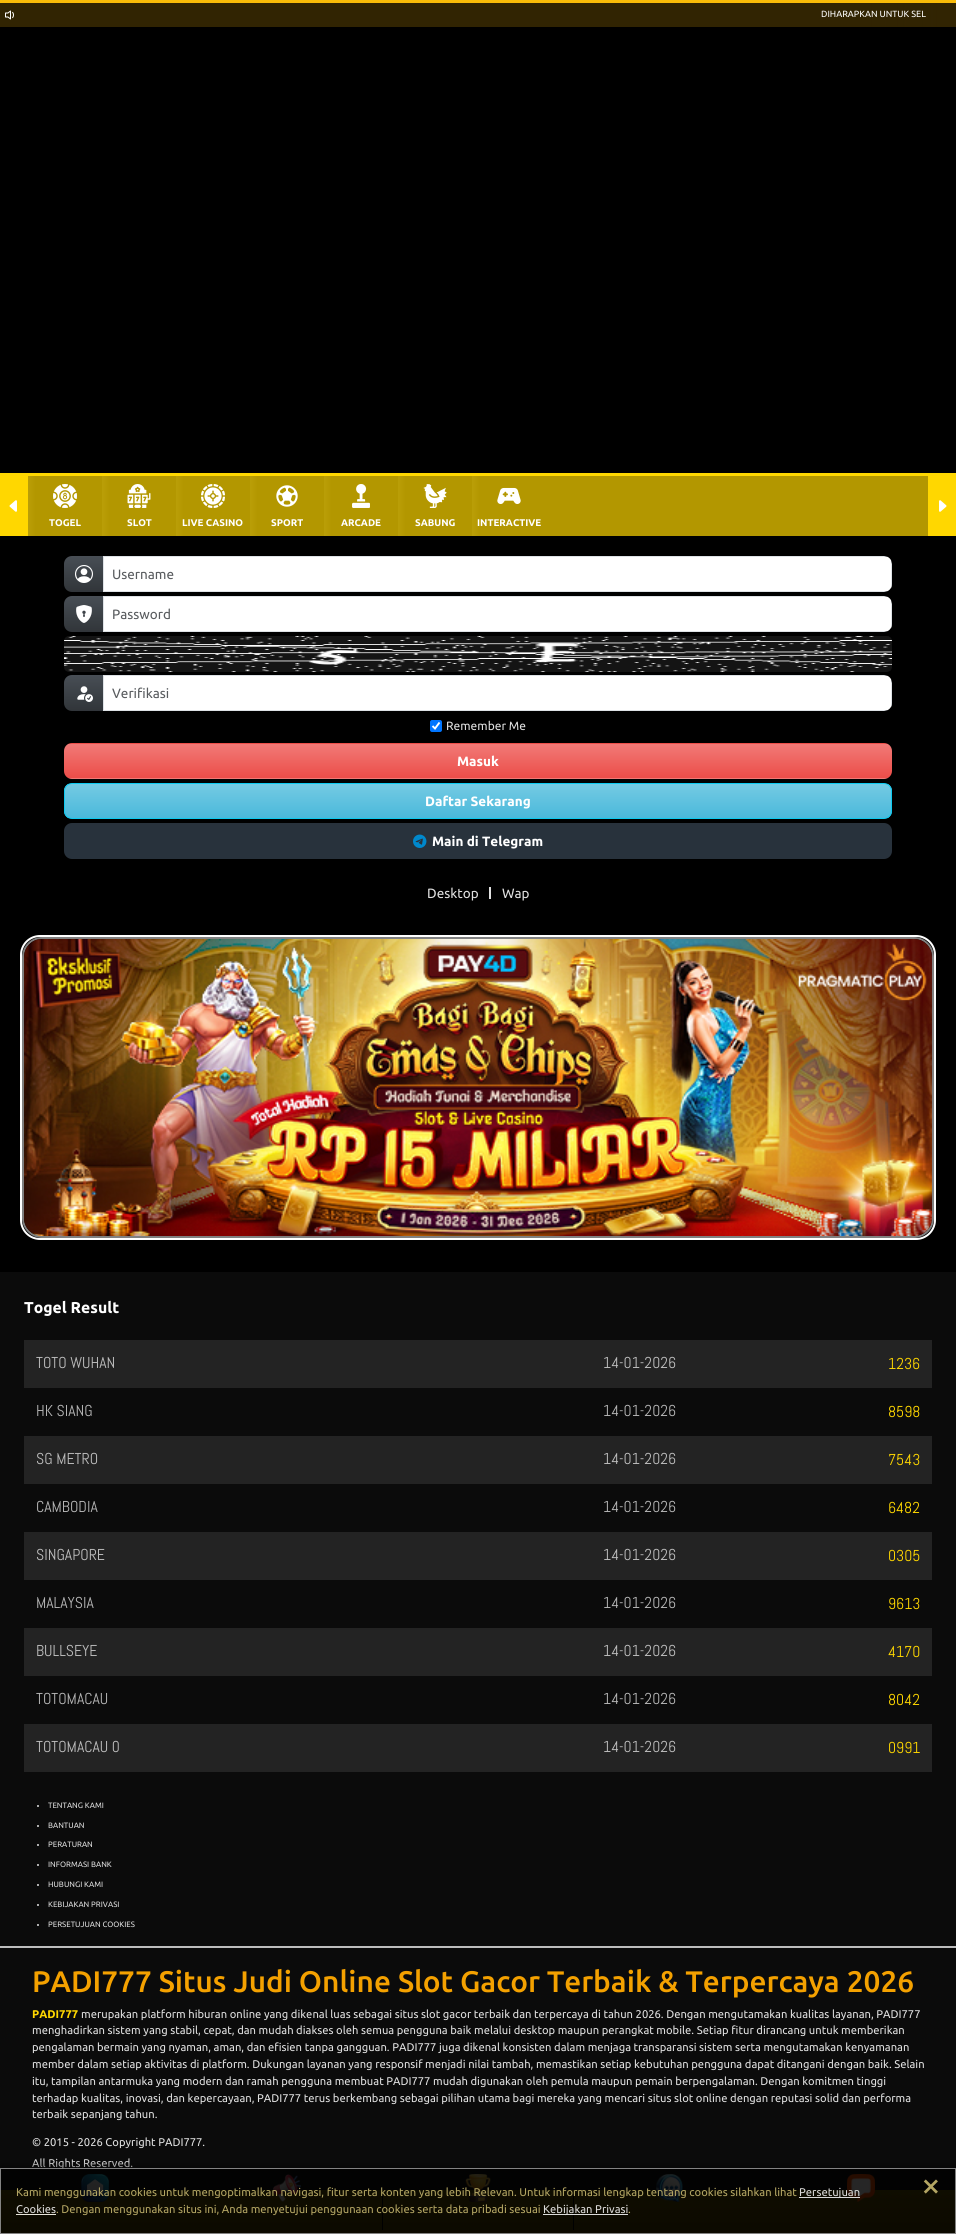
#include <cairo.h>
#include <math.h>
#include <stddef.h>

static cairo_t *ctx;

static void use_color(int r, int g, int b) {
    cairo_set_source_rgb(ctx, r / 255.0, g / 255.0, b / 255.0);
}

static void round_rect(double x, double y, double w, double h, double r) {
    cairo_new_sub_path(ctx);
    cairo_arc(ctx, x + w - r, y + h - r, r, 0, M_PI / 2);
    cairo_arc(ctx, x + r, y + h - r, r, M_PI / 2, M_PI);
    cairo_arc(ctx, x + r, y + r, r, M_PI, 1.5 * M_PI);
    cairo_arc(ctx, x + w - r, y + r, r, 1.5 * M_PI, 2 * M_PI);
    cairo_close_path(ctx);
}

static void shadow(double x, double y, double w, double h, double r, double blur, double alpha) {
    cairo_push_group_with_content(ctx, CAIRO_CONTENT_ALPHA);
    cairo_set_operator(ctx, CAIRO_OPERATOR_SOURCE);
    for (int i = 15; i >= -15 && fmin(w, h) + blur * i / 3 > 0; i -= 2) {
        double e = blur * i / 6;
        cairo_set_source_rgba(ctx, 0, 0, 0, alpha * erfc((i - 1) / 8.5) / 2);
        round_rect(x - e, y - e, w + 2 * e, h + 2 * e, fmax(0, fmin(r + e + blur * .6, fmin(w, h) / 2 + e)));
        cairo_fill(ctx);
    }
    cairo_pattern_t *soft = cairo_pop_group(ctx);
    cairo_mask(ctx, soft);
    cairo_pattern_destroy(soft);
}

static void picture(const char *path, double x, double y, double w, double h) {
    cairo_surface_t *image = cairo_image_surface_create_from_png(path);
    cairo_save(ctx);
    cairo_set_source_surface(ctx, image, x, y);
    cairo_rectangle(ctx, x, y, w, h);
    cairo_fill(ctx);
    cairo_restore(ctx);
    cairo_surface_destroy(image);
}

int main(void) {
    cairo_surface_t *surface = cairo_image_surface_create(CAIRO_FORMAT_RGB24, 956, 2234);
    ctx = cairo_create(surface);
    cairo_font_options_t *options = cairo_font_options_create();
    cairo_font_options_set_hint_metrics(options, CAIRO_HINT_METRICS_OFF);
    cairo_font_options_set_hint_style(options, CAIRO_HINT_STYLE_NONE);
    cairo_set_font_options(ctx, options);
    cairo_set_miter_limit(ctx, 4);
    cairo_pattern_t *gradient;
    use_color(0, 0, 0);
    cairo_paint(ctx);
    use_color(49, 36, 2);
    cairo_rectangle(ctx, 0, 3, 955, 24);
    cairo_fill(ctx);
    use_color(249, 187, 8);
    cairo_rectangle(ctx, 0, 0, 956, 3);
    cairo_fill(ctx);
    picture("img1.png", 5, 10, 9, 10);
    gradient = cairo_pattern_create_linear(20, 15, 956, 15);
    cairo_pattern_add_color_stop_rgba(gradient, 0, 0.192, 0.141, 0.008, 1);
    cairo_pattern_add_color_stop_rgba(gradient, 0.1, 0.192, 0.141, 0.008, 0);
    cairo_pattern_add_color_stop_rgba(gradient, 0.9, 0.192, 0.141, 0.008, 0);
    cairo_pattern_add_color_stop_rgba(gradient, 1, 0.192, 0.141, 0.008, 1);
    cairo_set_source(ctx, gradient);
    cairo_pattern_destroy(gradient);
    cairo_rectangle(ctx, 865, 3, 91, 24);
    cairo_fill(ctx);
    cairo_select_font_face(ctx, "Ubuntu", CAIRO_FONT_SLANT_NORMAL, CAIRO_FONT_WEIGHT_NORMAL);
    cairo_set_font_size(ctx, 9);
    use_color(255, 255, 255);
    cairo_move_to(ctx, 821, 17);
    cairo_show_text(ctx, "DIHARAPKAN UNTUK SEL");
    use_color(255, 215, 0);
    cairo_rectangle(ctx, 0, 473, 956, 3);
    cairo_fill(ctx);
    cairo_rectangle(ctx, 0, 476, 28, 60);
    cairo_fill(ctx);
    picture("img2.png", 9, 500, 8, 12);
    gradient = cairo_pattern_create_linear(28, 506, 928, 506);
    cairo_pattern_add_color_stop_rgba(gradient, 0, 0.729, 0.62, 0.031, 1);
    cairo_pattern_add_color_stop_rgba(gradient, 0.1, 0.702, 0.592, 0, 1);
    cairo_pattern_add_color_stop_rgba(gradient, 1, 0.702, 0.592, 0, 1);
    cairo_set_source(ctx, gradient);
    cairo_pattern_destroy(gradient);
    cairo_rectangle(ctx, 546, 476, 382, 60);
    cairo_fill(ctx);
    gradient = cairo_pattern_create_linear(28, 508, 102, 508);
    cairo_pattern_add_color_stop_rgba(gradient, 0, 0.729, 0.62, 0.031, 1);
    cairo_pattern_add_color_stop_rgba(gradient, 0.1, 0.702, 0.592, 0, 1);
    cairo_pattern_add_color_stop_rgba(gradient, 1, 0.702, 0.592, 0, 1);
    cairo_set_source(ctx, gradient);
    cairo_pattern_destroy(gradient);
    cairo_rectangle(ctx, 28, 476, 74, 60);
    cairo_fill(ctx);
    picture("img3.png", 53, 484, 24, 24);
    cairo_select_font_face(ctx, "Ubuntu", CAIRO_FONT_SLANT_NORMAL, CAIRO_FONT_WEIGHT_BOLD);
    cairo_set_font_size(ctx, 9.75);
    use_color(255, 255, 255);
    cairo_move_to(ctx, 49, 526);
    cairo_show_text(ctx, "TOGEL");
    gradient = cairo_pattern_create_linear(102, 508, 176, 508);
    cairo_pattern_add_color_stop_rgba(gradient, 0, 0.729, 0.62, 0.031, 1);
    cairo_pattern_add_color_stop_rgba(gradient, 0.1, 0.702, 0.592, 0, 1);
    cairo_pattern_add_color_stop_rgba(gradient, 1, 0.702, 0.592, 0, 1);
    cairo_set_source(ctx, gradient);
    cairo_pattern_destroy(gradient);
    cairo_rectangle(ctx, 102, 476, 74, 60);
    cairo_fill(ctx);
    picture("img4.png", 127, 484, 24, 24);
    use_color(255, 255, 255);
    cairo_move_to(ctx, 127, 526);
    cairo_show_text(ctx, "SLOT");
    gradient = cairo_pattern_create_linear(176, 508, 250, 508);
    cairo_pattern_add_color_stop_rgba(gradient, 0, 0.729, 0.62, 0.031, 1);
    cairo_pattern_add_color_stop_rgba(gradient, 0.1, 0.702, 0.592, 0, 1);
    cairo_pattern_add_color_stop_rgba(gradient, 1, 0.702, 0.592, 0, 1);
    cairo_set_source(ctx, gradient);
    cairo_pattern_destroy(gradient);
    cairo_rectangle(ctx, 176, 476, 74, 60);
    cairo_fill(ctx);
    picture("img5.png", 201, 484, 24, 24);
    use_color(255, 255, 255);
    cairo_move_to(ctx, 182, 526);
    cairo_show_text(ctx, "LIVE CASINO");
    gradient = cairo_pattern_create_linear(250, 508, 324, 508);
    cairo_pattern_add_color_stop_rgba(gradient, 0, 0.729, 0.62, 0.031, 1);
    cairo_pattern_add_color_stop_rgba(gradient, 0.1, 0.702, 0.592, 0, 1);
    cairo_pattern_add_color_stop_rgba(gradient, 1, 0.702, 0.592, 0, 1);
    cairo_set_source(ctx, gradient);
    cairo_pattern_destroy(gradient);
    cairo_rectangle(ctx, 250, 476, 74, 60);
    cairo_fill(ctx);
    picture("img6.png", 276, 485, 22, 22);
    use_color(255, 255, 255);
    cairo_move_to(ctx, 271, 526);
    cairo_show_text(ctx, "SPORT");
    gradient = cairo_pattern_create_linear(324, 508, 398, 508);
    cairo_pattern_add_color_stop_rgba(gradient, 0, 0.729, 0.62, 0.031, 1);
    cairo_pattern_add_color_stop_rgba(gradient, 0.1, 0.702, 0.592, 0, 1);
    cairo_pattern_add_color_stop_rgba(gradient, 1, 0.702, 0.592, 0, 1);
    cairo_set_source(ctx, gradient);
    cairo_pattern_destroy(gradient);
    cairo_rectangle(ctx, 324, 476, 74, 60);
    cairo_fill(ctx);
    picture("img7.png", 352, 484, 18, 24);
    use_color(255, 255, 255);
    cairo_move_to(ctx, 341, 526);
    cairo_show_text(ctx, "ARCADE");
    gradient = cairo_pattern_create_linear(398, 508, 472, 508);
    cairo_pattern_add_color_stop_rgba(gradient, 0, 0.729, 0.62, 0.031, 1);
    cairo_pattern_add_color_stop_rgba(gradient, 0.1, 0.702, 0.592, 0, 1);
    cairo_pattern_add_color_stop_rgba(gradient, 1, 0.702, 0.592, 0, 1);
    cairo_set_source(ctx, gradient);
    cairo_pattern_destroy(gradient);
    cairo_rectangle(ctx, 398, 476, 74, 60);
    cairo_fill(ctx);
    picture("img8.png", 423, 484, 24, 24);
    use_color(255, 255, 255);
    cairo_move_to(ctx, 415, 526);
    cairo_show_text(ctx, "SABUNG");
    gradient = cairo_pattern_create_linear(472, 508, 546, 508);
    cairo_pattern_add_color_stop_rgba(gradient, 0, 0.729, 0.62, 0.031, 1);
    cairo_pattern_add_color_stop_rgba(gradient, 0.1, 0.702, 0.592, 0, 1);
    cairo_pattern_add_color_stop_rgba(gradient, 1, 0.702, 0.592, 0, 1);
    cairo_set_source(ctx, gradient);
    cairo_pattern_destroy(gradient);
    cairo_rectangle(ctx, 472, 476, 74, 60);
    cairo_fill(ctx);
    picture("img9.png", 497, 487, 24, 17);
    use_color(255, 255, 255);
    cairo_move_to(ctx, 477, 526);
    cairo_show_text(ctx, "INTERACTIVE");
    use_color(255, 215, 0);
    cairo_rectangle(ctx, 928, 476, 28, 60);
    cairo_fill(ctx);
    picture("img10.png", 939, 500, 8, 12);
    gradient = cairo_pattern_create_linear(84, 556, 84, 592);
    cairo_pattern_add_color_stop_rgba(gradient, 0, 0.282, 0.306, 0.333, 1);
    cairo_pattern_add_color_stop_rgba(gradient, 0.6, 0.227, 0.247, 0.267, 1);
    cairo_pattern_add_color_stop_rgba(gradient, 1, 0.192, 0.208, 0.224, 1);
    cairo_set_source(ctx, gradient);
    cairo_pattern_destroy(gradient);
    cairo_new_path(ctx);
    cairo_move_to(ctx, 72, 556);
    cairo_line_to(ctx, 104, 556);
    cairo_line_to(ctx, 104, 592);
    cairo_line_to(ctx, 72, 592);
    cairo_curve_to(ctx, 67.5, 592, 64, 588.5, 64, 584);
    cairo_line_to(ctx, 64, 564);
    cairo_curve_to(ctx, 64, 559.5, 67.5, 556, 72, 556);
    cairo_close_path(ctx);
    cairo_fill(ctx);
    picture("img11.png", 75, 565, 18, 18);
    cairo_save(ctx);
    round_rect(64, 556, 828, 36, 8);
    cairo_clip(ctx);
    use_color(255, 255, 255);
    cairo_new_path(ctx);
    cairo_move_to(ctx, 104, 557);
    cairo_line_to(ctx, 889, 557);
    cairo_curve_to(ctx, 890, 557, 891, 558, 891, 559);
    cairo_line_to(ctx, 891, 589);
    cairo_curve_to(ctx, 891, 590, 890, 591, 889, 591);
    cairo_line_to(ctx, 104, 591);
    cairo_close_path(ctx);
    cairo_fill(ctx);
    cairo_restore(ctx);
    use_color(222, 226, 230);
    cairo_set_fill_rule(ctx, CAIRO_FILL_RULE_EVEN_ODD);
    cairo_new_path(ctx);
    cairo_move_to(ctx, 103, 556);
    cairo_line_to(ctx, 103, 592);
    cairo_line_to(ctx, 884, 592);
    cairo_line_to(ctx, 888, 591);
    cairo_line_to(ctx, 104, 591);
    cairo_line_to(ctx, 104, 557);
    cairo_line_to(ctx, 888, 557);
    cairo_line_to(ctx, 884, 556);
    cairo_close_path(ctx);
    cairo_move_to(ctx, 892, 564);
    cairo_line_to(ctx, 891, 560);
    cairo_line_to(ctx, 891, 588);
    cairo_curve_to(ctx, 892, 587, 892, 585, 892, 584);
    cairo_close_path(ctx);
    cairo_fill(ctx);
    cairo_select_font_face(ctx, "Ubuntu", CAIRO_FONT_SLANT_NORMAL, CAIRO_FONT_WEIGHT_NORMAL);
    cairo_set_font_size(ctx, 13.5);
    use_color(89, 92, 95);
    cairo_move_to(ctx, 112, 579);
    cairo_show_text(ctx, "Username");
    gradient = cairo_pattern_create_linear(84, 596, 84, 632);
    cairo_pattern_add_color_stop_rgba(gradient, 0, 0.282, 0.306, 0.333, 1);
    cairo_pattern_add_color_stop_rgba(gradient, 0.6, 0.227, 0.247, 0.267, 1);
    cairo_pattern_add_color_stop_rgba(gradient, 1, 0.192, 0.208, 0.224, 1);
    cairo_set_source(ctx, gradient);
    cairo_pattern_destroy(gradient);
    cairo_new_path(ctx);
    cairo_move_to(ctx, 72, 596);
    cairo_line_to(ctx, 104, 596);
    cairo_line_to(ctx, 104, 632);
    cairo_line_to(ctx, 72, 632);
    cairo_curve_to(ctx, 67.5, 632, 64, 628.5, 64, 624);
    cairo_line_to(ctx, 64, 604);
    cairo_curve_to(ctx, 64, 599.5, 67.5, 596, 72, 596);
    cairo_close_path(ctx);
    cairo_fill(ctx);
    picture("img12.png", 76, 605, 16, 18);
    cairo_save(ctx);
    cairo_set_fill_rule(ctx, CAIRO_FILL_RULE_WINDING);
    round_rect(64, 596, 828, 36, 8);
    cairo_clip(ctx);
    use_color(255, 255, 255);
    cairo_new_path(ctx);
    cairo_move_to(ctx, 104, 597);
    cairo_line_to(ctx, 889, 597);
    cairo_curve_to(ctx, 890, 597, 891, 598, 891, 599);
    cairo_line_to(ctx, 891, 629);
    cairo_curve_to(ctx, 891, 630, 890, 631, 889, 631);
    cairo_line_to(ctx, 104, 631);
    cairo_close_path(ctx);
    cairo_fill(ctx);
    cairo_restore(ctx);
    use_color(222, 226, 230);
    cairo_new_path(ctx);
    cairo_move_to(ctx, 103, 596);
    cairo_line_to(ctx, 103, 632);
    cairo_line_to(ctx, 884, 632);
    cairo_line_to(ctx, 888, 631);
    cairo_line_to(ctx, 104, 631);
    cairo_line_to(ctx, 104, 597);
    cairo_line_to(ctx, 888, 597);
    cairo_line_to(ctx, 884, 596);
    cairo_close_path(ctx);
    cairo_move_to(ctx, 892, 604);
    cairo_line_to(ctx, 891, 600);
    cairo_line_to(ctx, 891, 628);
    cairo_curve_to(ctx, 892, 627, 892, 625, 892, 624);
    cairo_close_path(ctx);
    cairo_fill(ctx);
    use_color(89, 92, 95);
    cairo_move_to(ctx, 112, 619);
    cairo_show_text(ctx, "Password");
    picture("img13.png", 64, 636, 828, 36);
    gradient = cairo_pattern_create_linear(84, 675, 84, 711);
    cairo_pattern_add_color_stop_rgba(gradient, 0, 0.282, 0.306, 0.333, 1);
    cairo_pattern_add_color_stop_rgba(gradient, 0.6, 0.227, 0.247, 0.267, 1);
    cairo_pattern_add_color_stop_rgba(gradient, 1, 0.192, 0.208, 0.224, 1);
    cairo_set_source(ctx, gradient);
    cairo_pattern_destroy(gradient);
    cairo_new_path(ctx);
    cairo_move_to(ctx, 72, 675);
    cairo_line_to(ctx, 104, 675);
    cairo_line_to(ctx, 104, 711);
    cairo_line_to(ctx, 72, 711);
    cairo_curve_to(ctx, 67.5, 711, 64, 707.5, 64, 703);
    cairo_line_to(ctx, 64, 683);
    cairo_curve_to(ctx, 64, 678.5, 67.5, 675, 72, 675);
    cairo_close_path(ctx);
    cairo_fill(ctx);
    picture("img14.png", 77, 686, 16, 16);
    cairo_save(ctx);
    cairo_set_fill_rule(ctx, CAIRO_FILL_RULE_WINDING);
    round_rect(64, 675, 828, 36, 8);
    cairo_clip(ctx);
    use_color(255, 255, 255);
    cairo_new_path(ctx);
    cairo_move_to(ctx, 104, 676);
    cairo_line_to(ctx, 889, 676);
    cairo_curve_to(ctx, 890, 676, 891, 677, 891, 678);
    cairo_line_to(ctx, 891, 708);
    cairo_curve_to(ctx, 891, 709, 890, 710, 889, 710);
    cairo_line_to(ctx, 104, 710);
    cairo_close_path(ctx);
    cairo_fill(ctx);
    cairo_restore(ctx);
    use_color(222, 226, 230);
    cairo_new_path(ctx);
    cairo_move_to(ctx, 103, 675);
    cairo_line_to(ctx, 103, 711);
    cairo_line_to(ctx, 884, 711);
    cairo_line_to(ctx, 888, 710);
    cairo_line_to(ctx, 104, 710);
    cairo_line_to(ctx, 104, 676);
    cairo_line_to(ctx, 888, 676);
    cairo_line_to(ctx, 884, 675);
    cairo_close_path(ctx);
    cairo_move_to(ctx, 892, 683);
    cairo_line_to(ctx, 891, 679);
    cairo_line_to(ctx, 891, 707);
    cairo_curve_to(ctx, 892, 706, 892, 704, 892, 703);
    cairo_close_path(ctx);
    cairo_fill(ctx);
    use_color(89, 92, 95);
    cairo_move_to(ctx, 112, 698);
    cairo_show_text(ctx, "Verifikasi");
    use_color(0, 117, 255);
    round_rect(430, 720, 12, 12, 2);
    cairo_fill(ctx);
    cairo_new_path(ctx);
    cairo_move_to(ctx, 432.5, 726);
    cairo_line_to(ctx, 435, 728.5);
    cairo_line_to(ctx, 439.5, 722.5);
    use_color(255, 255, 255);
    cairo_set_line_width(ctx, 1.9);
    cairo_stroke(ctx);
    cairo_set_font_size(ctx, 12);
    use_color(224, 224, 224);
    cairo_move_to(ctx, 446, 730);
    cairo_show_text(ctx, "Remember Me");
    cairo_save(ctx);
    cairo_set_fill_rule(ctx, CAIRO_FILL_RULE_WINDING);
    round_rect(64, 743, 828, 36, 8);
    cairo_clip(ctx);
    gradient = cairo_pattern_create_linear(478, 710, 478, 744);
    cairo_pattern_add_color_stop_rgba(gradient, 0, 0.945, 0.478, 0.467, 1);
    cairo_pattern_add_color_stop_rgba(gradient, 0.6, 0.933, 0.373, 0.357, 1);
    cairo_pattern_add_color_stop_rgba(gradient, 1, 0.925, 0.302, 0.286, 1);
    cairo_set_source(ctx, gradient);
    cairo_pattern_destroy(gradient);
    cairo_rectangle(ctx, 64, 743, 828, 1);
    cairo_fill(ctx);
    gradient = cairo_pattern_create_linear(478, 744, 478, 778);
    cairo_pattern_add_color_stop_rgba(gradient, 0, 0.945, 0.478, 0.467, 1);
    cairo_pattern_add_color_stop_rgba(gradient, 0.6, 0.933, 0.373, 0.357, 1);
    cairo_pattern_add_color_stop_rgba(gradient, 1, 0.925, 0.302, 0.286, 1);
    cairo_set_source(ctx, gradient);
    cairo_pattern_destroy(gradient);
    cairo_rectangle(ctx, 64, 744, 828, 34);
    cairo_fill(ctx);
    gradient = cairo_pattern_create_linear(478, 778, 478, 812);
    cairo_pattern_add_color_stop_rgba(gradient, 0, 0.945, 0.478, 0.467, 1);
    cairo_pattern_add_color_stop_rgba(gradient, 0.6, 0.933, 0.373, 0.357, 1);
    cairo_pattern_add_color_stop_rgba(gradient, 1, 0.925, 0.302, 0.286, 1);
    cairo_set_source(ctx, gradient);
    cairo_pattern_destroy(gradient);
    cairo_rectangle(ctx, 64, 778, 828, 1);
    cairo_fill(ctx);
    cairo_restore(ctx);
    cairo_select_font_face(ctx, "Ubuntu", CAIRO_FONT_SLANT_NORMAL, CAIRO_FONT_WEIGHT_BOLD);
    cairo_set_font_size(ctx, 13.5);
    use_color(255, 255, 255);
    cairo_move_to(ctx, 457, 766);
    cairo_show_text(ctx, "Masuk");
    cairo_save(ctx);
    cairo_set_fill_rule(ctx, CAIRO_FILL_RULE_WINDING);
    round_rect(64, 783, 828, 36, 8);
    cairo_clip(ctx);
    gradient = cairo_pattern_create_linear(478, 784, 478, 818);
    cairo_pattern_add_color_stop_rgba(gradient, 0, 0.455, 0.792, 0.89, 1);
    cairo_pattern_add_color_stop_rgba(gradient, 0.6, 0.357, 0.753, 0.871, 1);
    cairo_pattern_add_color_stop_rgba(gradient, 1, 0.29, 0.725, 0.859, 1);
    cairo_set_source(ctx, gradient);
    cairo_pattern_destroy(gradient);
    cairo_rectangle(ctx, 64, 784, 828, 34);
    cairo_fill(ctx);
    cairo_restore(ctx);
    round_rect(64.5, 783.5, 827, 35, 7.5);
    use_color(13, 202, 240);
    cairo_set_line_width(ctx, 1);
    cairo_stroke(ctx);
    use_color(255, 255, 255);
    cairo_move_to(ctx, 425, 806);
    cairo_show_text(ctx, "Daftar Sekarang");
    use_color(40, 50, 60);
    round_rect(64, 823, 828, 36, 8);
    cairo_fill(ctx);
    picture("img15.png", 413, 834, 14, 14);
    use_color(255, 255, 255);
    cairo_move_to(ctx, 432, 846);
    cairo_show_text(ctx, "Main di Telegram");
    cairo_select_font_face(ctx, "Ubuntu", CAIRO_FONT_SLANT_NORMAL, CAIRO_FONT_WEIGHT_NORMAL);
    use_color(224, 224, 224);
    cairo_move_to(ctx, 427, 898);
    cairo_show_text(ctx, "Desktop");
    cairo_rectangle(ctx, 489, 887, 2, 12);
    cairo_fill(ctx);
    cairo_move_to(ctx, 502, 898);
    cairo_show_text(ctx, "Wap");
    round_rect(21, 936, 914, 303, 19);
    use_color(255, 255, 255);
    cairo_set_line_width(ctx, 2);
    cairo_stroke(ctx);
    round_rect(23, 938, 910, 299, 19);
    use_color(128, 128, 128);
    cairo_stroke(ctx);
    picture("img16.png", 24, 939, 908, 297);
    use_color(11, 11, 11);
    cairo_rectangle(ctx, 0, 1272, 956, 674);
    cairo_fill(ctx);
    cairo_select_font_face(ctx, "Ubuntu", CAIRO_FONT_SLANT_NORMAL, CAIRO_FONT_WEIGHT_BOLD);
    cairo_set_font_size(ctx, 15.75);
    use_color(255, 255, 255);
    cairo_move_to(ctx, 24, 1313);
    cairo_show_text(ctx, "Togel Result");
    use_color(35, 35, 35);
    cairo_rectangle(ctx, 24, 1340, 908, 48);
    cairo_fill(ctx);
    cairo_select_font_face(ctx, "Abel", CAIRO_FONT_SLANT_NORMAL, CAIRO_FONT_WEIGHT_NORMAL);
    use_color(189, 189, 189);
    cairo_move_to(ctx, 36, 1368);
    cairo_show_text(ctx, "TOTO WUHAN");
    cairo_move_to(ctx, 603, 1368);
    cairo_show_text(ctx, "14-01-2026");
    use_color(255, 215, 0);
    cairo_move_to(ctx, 888, 1369);
    cairo_show_text(ctx, "1236");
    use_color(182, 182, 182);
    cairo_move_to(ctx, 36, 1416);
    cairo_show_text(ctx, "HK SIANG");
    cairo_move_to(ctx, 603, 1416);
    cairo_show_text(ctx, "14-01-2026");
    use_color(255, 215, 0);
    cairo_move_to(ctx, 888, 1417);
    cairo_show_text(ctx, "8598");
    use_color(35, 35, 35);
    cairo_rectangle(ctx, 24, 1436, 908, 48);
    cairo_fill(ctx);
    use_color(189, 189, 189);
    cairo_move_to(ctx, 36, 1464);
    cairo_show_text(ctx, "SG METRO");
    cairo_move_to(ctx, 603, 1464);
    cairo_show_text(ctx, "14-01-2026");
    use_color(255, 215, 0);
    cairo_move_to(ctx, 888, 1465);
    cairo_show_text(ctx, "7543");
    use_color(182, 182, 182);
    cairo_move_to(ctx, 36, 1512);
    cairo_show_text(ctx, "CAMBODIA");
    cairo_move_to(ctx, 603, 1512);
    cairo_show_text(ctx, "14-01-2026");
    use_color(255, 215, 0);
    cairo_move_to(ctx, 888, 1513);
    cairo_show_text(ctx, "6482");
    use_color(35, 35, 35);
    cairo_rectangle(ctx, 24, 1532, 908, 48);
    cairo_fill(ctx);
    use_color(189, 189, 189);
    cairo_move_to(ctx, 36, 1560);
    cairo_show_text(ctx, "SINGAPORE");
    cairo_move_to(ctx, 603, 1560);
    cairo_show_text(ctx, "14-01-2026");
    use_color(255, 215, 0);
    cairo_move_to(ctx, 888, 1561);
    cairo_show_text(ctx, "0305");
    use_color(182, 182, 182);
    cairo_move_to(ctx, 36, 1608);
    cairo_show_text(ctx, "MALAYSIA");
    cairo_move_to(ctx, 603, 1608);
    cairo_show_text(ctx, "14-01-2026");
    use_color(255, 215, 0);
    cairo_move_to(ctx, 888, 1609);
    cairo_show_text(ctx, "9613");
    use_color(35, 35, 35);
    cairo_rectangle(ctx, 24, 1628, 908, 48);
    cairo_fill(ctx);
    use_color(189, 189, 189);
    cairo_move_to(ctx, 36, 1656);
    cairo_show_text(ctx, "BULLSEYE");
    cairo_move_to(ctx, 603, 1656);
    cairo_show_text(ctx, "14-01-2026");
    use_color(255, 215, 0);
    cairo_move_to(ctx, 888, 1657);
    cairo_show_text(ctx, "4170");
    use_color(182, 182, 182);
    cairo_move_to(ctx, 36, 1704);
    cairo_show_text(ctx, "TOTOMACAU");
    cairo_move_to(ctx, 603, 1704);
    cairo_show_text(ctx, "14-01-2026");
    use_color(255, 215, 0);
    cairo_move_to(ctx, 888, 1705);
    cairo_show_text(ctx, "8042");
    use_color(35, 35, 35);
    cairo_rectangle(ctx, 24, 1724, 908, 48);
    cairo_fill(ctx);
    use_color(189, 189, 189);
    cairo_move_to(ctx, 36, 1752);
    cairo_show_text(ctx, "TOTOMACAU 0");
    cairo_move_to(ctx, 603, 1752);
    cairo_show_text(ctx, "14-01-2026");
    use_color(255, 215, 0);
    cairo_move_to(ctx, 888, 1753);
    cairo_show_text(ctx, "0991");
    use_color(224, 224, 224);
    cairo_new_path(ctx);
    cairo_arc(ctx, 38, 1806, 1, 0, 2 * M_PI);
    cairo_fill(ctx);
    cairo_select_font_face(ctx, "Ubuntu", CAIRO_FONT_SLANT_NORMAL, CAIRO_FONT_WEIGHT_NORMAL);
    cairo_set_font_size(ctx, 7.8);
    cairo_move_to(ctx, 48, 1808);
    cairo_show_text(ctx, "TENTANG KAMI");
    cairo_new_path(ctx);
    cairo_arc(ctx, 38, 1826, 1, 0, 2 * M_PI);
    cairo_fill(ctx);
    cairo_move_to(ctx, 48, 1828);
    cairo_show_text(ctx, "BANTUAN");
    cairo_new_path(ctx);
    cairo_arc(ctx, 38, 1845, 1, 0, 2 * M_PI);
    cairo_fill(ctx);
    cairo_move_to(ctx, 48, 1847);
    cairo_show_text(ctx, "PERATURAN");
    cairo_new_path(ctx);
    cairo_arc(ctx, 38, 1865, 1, 0, 2 * M_PI);
    cairo_fill(ctx);
    cairo_move_to(ctx, 48, 1867);
    cairo_show_text(ctx, "INFORMASI BANK");
    cairo_new_path(ctx);
    cairo_arc(ctx, 38, 1885, 1, 0, 2 * M_PI);
    cairo_fill(ctx);
    cairo_move_to(ctx, 48, 1887);
    cairo_show_text(ctx, "HUBUNGI KAMI");
    cairo_new_path(ctx);
    cairo_arc(ctx, 38, 1905, 1, 0, 2 * M_PI);
    cairo_fill(ctx);
    cairo_move_to(ctx, 48, 1907);
    cairo_show_text(ctx, "KEBIJAKAN PRIVASI");
    cairo_new_path(ctx);
    cairo_arc(ctx, 38, 1925, 1, 0, 2 * M_PI);
    cairo_fill(ctx);
    cairo_move_to(ctx, 48, 1927);
    cairo_show_text(ctx, "PERSETUJUAN COOKIES");
    use_color(11, 11, 11);
    cairo_rectangle(ctx, 0, 1948, 956, 242);
    cairo_fill(ctx);
    use_color(189, 189, 189);
    cairo_rectangle(ctx, 0, 1946, 956, 2);
    cairo_fill(ctx);
    cairo_select_font_face(ctx, "Ubuntu Medium", CAIRO_FONT_SLANT_NORMAL, CAIRO_FONT_WEIGHT_NORMAL);
    cairo_set_font_size(ctx, 29.75);
    use_color(244, 161, 0);
    cairo_move_to(ctx, 32, 1992);
    cairo_show_text(ctx, "PADI777 Situs Judi Online Slot Gacor Terbaik & Terpercaya 2026");
    cairo_select_font_face(ctx, "Ubuntu", CAIRO_FONT_SLANT_NORMAL, CAIRO_FONT_WEIGHT_BOLD);
    cairo_set_font_size(ctx, 11.2);
    use_color(255, 215, 0);
    cairo_move_to(ctx, 32, 2018);
    cairo_show_text(ctx, "PADI777");
    cairo_select_font_face(ctx, "Ubuntu", CAIRO_FONT_SLANT_NORMAL, CAIRO_FONT_WEIGHT_NORMAL);
    use_color(224, 224, 224);
    cairo_move_to(ctx, 81, 2018);
    cairo_show_text(ctx, "merupakan platform hiburan online yang dikenal luas sebagai situs slot gacor terbaik dan terpercaya di tahun 2026. Dengan mengutamakan kualitas layanan, PADI777");
    cairo_move_to(ctx, 32, 2034);
    cairo_show_text(ctx, "menghadirkan sistem yang stabil, cepat, dan mudah diakses oleh semua pengguna baik melalui desktop maupun perangkat mobile. Setiap fitur dirancang untuk memberikan");
    cairo_move_to(ctx, 32, 2051);
    cairo_show_text(ctx, "pengalaman bermain yang nyaman, aman, dan efisien tanpa gangguan. PADI777 juga dikenal konsisten dalam menjaga transparansi sistem serta mengutamakan kenyamanan");
    cairo_move_to(ctx, 32, 2068);
    cairo_show_text(ctx, "member dalam setiap aktivitas di platform. Dukungan layanan yang responsif menjadi nilai tambah, memastikan setiap kebutuhan pengguna dapat ditangani dengan baik. Selain");
    cairo_move_to(ctx, 32, 2085);
    cairo_show_text(ctx, "itu, tampilan antarmuka yang modern dan ramah pengguna membuat PADI777 mudah digunakan oleh pemula maupun pemain berpengalaman. Dengan komitmen tinggi");
    cairo_move_to(ctx, 32, 2102);
    cairo_show_text(ctx, "terhadap kualitas, inovasi, dan kepercayaan, PADI777 terus berkembang sebagai pilihan utama bagi mereka yang mencari situs slot online dengan reputasi solid dan performa");
    cairo_move_to(ctx, 32, 2118);
    cairo_show_text(ctx, "terbaik sepanjang tahun.");
    cairo_move_to(ctx, 32, 2146);
    cairo_show_text(ctx, "© 2015 - 2026 Copyright PADI777.");
    cairo_move_to(ctx, 32, 2167);
    cairo_show_text(ctx, "All Rights Reserved.");
    gradient = cairo_pattern_create_linear(478, 2234, 478, 2190);
    cairo_pattern_add_color_stop_rgba(gradient, 0, 0.302, 0.255, 0, 1);
    cairo_pattern_add_color_stop_rgba(gradient, 1, 0.4, 0.337, 0, 1);
    cairo_set_source(ctx, gradient);
    cairo_pattern_destroy(gradient);
    cairo_rectangle(ctx, 0, 2190, 956, 44);
    cairo_fill(ctx);
    picture("img17.png", 81, 2174, 28, 28);
    picture("img18.png", 273, 2174, 28, 28);
    picture("img19.png", 465, 2174, 26, 28);
    picture("img20.png", 655, 2174, 28, 28);
    picture("img21.png", 847, 2174, 28, 28);
    use_color(0, 0, 0);
    cairo_rectangle(ctx, 382, 2194, 1, 36);
    cairo_fill(ctx);
    cairo_rectangle(ctx, 573, 2194, 1, 36);
    cairo_fill(ctx);
    cairo_save(ctx);
    cairo_set_fill_rule(ctx, CAIRO_FILL_RULE_WINDING);
    cairo_rectangle(ctx, 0, 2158, 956, 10);
    cairo_clip(ctx);
    use_color(0, 0, 0);
    shadow(0, 2168, 956, 66, 0, 5, 0.85);
    cairo_restore(ctx);
    cairo_set_source_rgba(ctx, 0, 0, 0, 0.85);
    cairo_rectangle(ctx, 0, 2168, 956, 66);
    cairo_fill(ctx);
    cairo_rectangle(ctx, 0.5, 2168.5, 955, 65);
    cairo_set_source_rgba(ctx, 0.6, 0.6, 0.6, 0.85);
    cairo_set_line_width(ctx, 1);
    cairo_stroke(ctx);
    use_color(179, 165, 99);
    cairo_move_to(ctx, 16, 2196);
    cairo_show_text(ctx, "Kami menggunakan cookies untuk mengoptimalkan navigasi, fitur serta konten yang lebih Relevan. Untuk informasi lengkap tentang cookies silahkan lihat");
    cairo_set_source_rgba(ctx, 1, 1, 1, 0.85);
    cairo_rectangle(ctx, 799, 2197, 61, 1);
    cairo_fill(ctx);
    use_color(220, 219, 217);
    cairo_move_to(ctx, 799, 2196);
    cairo_show_text(ctx, "Persetujuan");
    cairo_move_to(ctx, 16, 2213);
    cairo_show_text(ctx, "Cookies");
    use_color(230, 228, 217);
    cairo_rectangle(ctx, 16, 2214, 40, 1);
    cairo_fill(ctx);
    use_color(179, 165, 99);
    cairo_move_to(ctx, 56, 2213);
    cairo_show_text(ctx, ". Dengan menggunakan situs ini, Anda menyetujui penggunaan cookies serta data pribadi sesuai");
    cairo_set_source_rgba(ctx, 1, 1, 1, 0.85);
    cairo_rectangle(ctx, 543, 2214, 85, 1);
    cairo_fill(ctx);
    use_color(220, 219, 217);
    cairo_move_to(ctx, 543, 2213);
    cairo_show_text(ctx, "Kebijakan Privasi");
    use_color(190, 174, 99);
    cairo_move_to(ctx, 628, 2213);
    cairo_show_text(ctx, ".");
    cairo_set_font_size(ctx, 35);
    use_color(179, 165, 99);
    cairo_move_to(ctx, 921, 2197);
    cairo_show_text(ctx, "×");
    cairo_surface_write_to_png(surface, "result.png");
    cairo_font_options_destroy(options);
    cairo_destroy(ctx);
    cairo_surface_destroy(surface);
    return 0;
}
